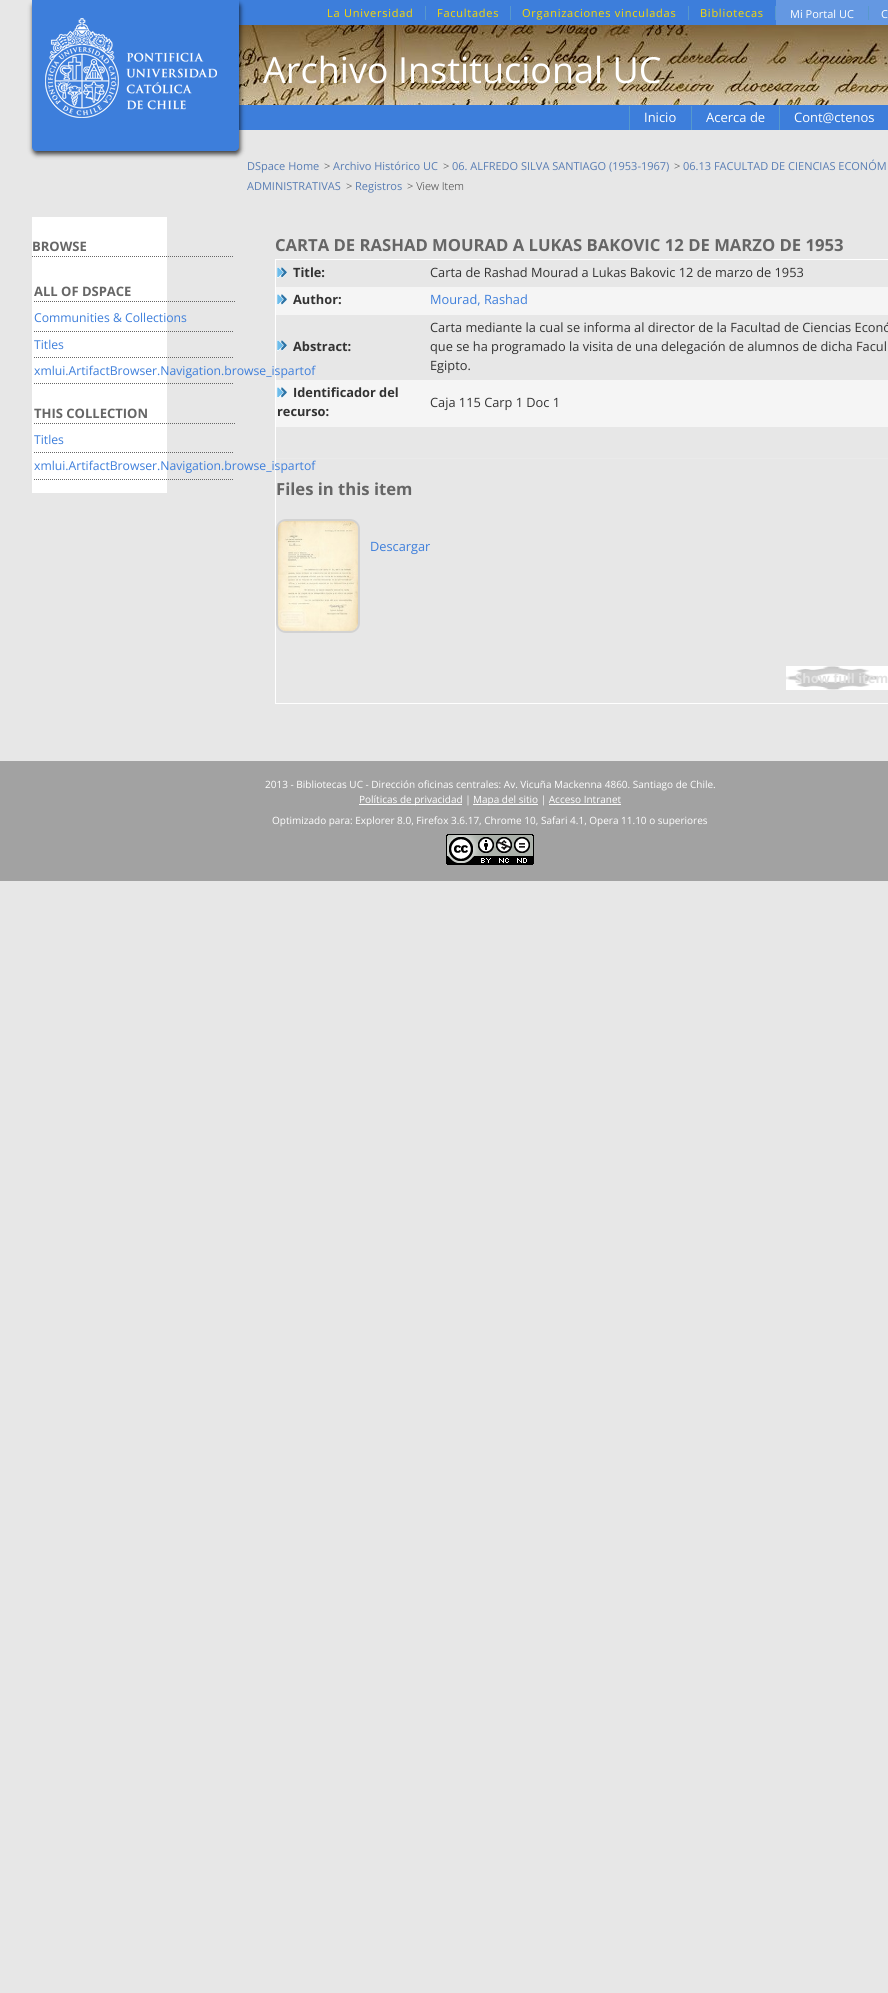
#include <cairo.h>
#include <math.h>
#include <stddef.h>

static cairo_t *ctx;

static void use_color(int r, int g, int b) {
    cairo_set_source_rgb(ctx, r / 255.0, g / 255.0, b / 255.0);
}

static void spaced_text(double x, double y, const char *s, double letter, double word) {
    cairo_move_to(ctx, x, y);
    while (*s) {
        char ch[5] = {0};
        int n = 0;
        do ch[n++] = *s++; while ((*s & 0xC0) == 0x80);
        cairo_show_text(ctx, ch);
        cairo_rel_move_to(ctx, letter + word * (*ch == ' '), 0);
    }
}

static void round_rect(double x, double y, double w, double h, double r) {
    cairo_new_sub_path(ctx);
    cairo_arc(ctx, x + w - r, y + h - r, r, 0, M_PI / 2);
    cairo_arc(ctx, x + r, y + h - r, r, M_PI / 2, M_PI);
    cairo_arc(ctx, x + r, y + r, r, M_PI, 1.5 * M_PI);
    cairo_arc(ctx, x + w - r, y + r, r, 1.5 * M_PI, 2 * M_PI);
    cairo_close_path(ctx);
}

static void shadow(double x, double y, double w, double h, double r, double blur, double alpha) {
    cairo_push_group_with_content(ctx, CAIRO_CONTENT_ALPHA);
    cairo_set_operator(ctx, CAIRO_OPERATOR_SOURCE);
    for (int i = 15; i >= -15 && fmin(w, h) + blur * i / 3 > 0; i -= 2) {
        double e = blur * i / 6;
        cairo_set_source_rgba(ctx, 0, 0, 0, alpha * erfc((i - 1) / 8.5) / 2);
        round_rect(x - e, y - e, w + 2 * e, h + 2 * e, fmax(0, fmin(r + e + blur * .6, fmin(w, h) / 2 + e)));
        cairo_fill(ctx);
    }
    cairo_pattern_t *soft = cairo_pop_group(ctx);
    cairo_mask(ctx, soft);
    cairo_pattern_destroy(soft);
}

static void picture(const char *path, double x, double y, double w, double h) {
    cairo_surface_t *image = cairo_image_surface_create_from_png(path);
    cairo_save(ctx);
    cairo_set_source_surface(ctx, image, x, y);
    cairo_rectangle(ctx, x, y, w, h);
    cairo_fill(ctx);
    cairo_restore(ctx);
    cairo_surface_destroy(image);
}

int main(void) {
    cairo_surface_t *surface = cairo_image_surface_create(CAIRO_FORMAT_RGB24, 888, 1993);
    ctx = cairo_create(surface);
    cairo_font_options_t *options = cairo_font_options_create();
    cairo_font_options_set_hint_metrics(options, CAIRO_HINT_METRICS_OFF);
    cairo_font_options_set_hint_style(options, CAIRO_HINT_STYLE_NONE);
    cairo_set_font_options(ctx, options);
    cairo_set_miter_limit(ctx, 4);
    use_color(231, 231, 231);
    cairo_paint(ctx);
    use_color(61, 126, 219);
    cairo_rectangle(ctx, 239, 0, 537, 25);
    cairo_fill(ctx);
    cairo_rectangle(ctx, 239, 105, 649, 25);
    cairo_fill(ctx);
    picture("img7.png", 239, 25, 649, 80);
    use_color(0, 0, 0);
    shadow(33, 3, 207, 151, 4, 2.5, 0.75);
    use_color(61, 126, 219);
    cairo_new_path(ctx);
    cairo_move_to(ctx, 32, 0);
    cairo_line_to(ctx, 239, 0);
    cairo_line_to(ctx, 239, 147);
    cairo_curve_to(ctx, 239, 149, 237, 151, 235, 151);
    cairo_line_to(ctx, 36, 151);
    cairo_curve_to(ctx, 34, 151, 32, 149, 32, 147);
    cairo_close_path(ctx);
    cairo_fill(ctx);
    picture("img1.png", 45, 18, 172, 100);
    cairo_select_font_face(ctx, "Open Sans", CAIRO_FONT_SLANT_NORMAL, CAIRO_FONT_WEIGHT_NORMAL);
    cairo_set_font_size(ctx, 11);
    use_color(252, 217, 0);
    spaced_text(327, 17, "La Universidad", 0.75, 0);
    use_color(88, 152, 203);
    cairo_rectangle(ctx, 425, 6, 1, 14);
    cairo_fill(ctx);
    use_color(252, 217, 0);
    spaced_text(437, 17, "Facultades", 0.75, 0);
    use_color(88, 152, 203);
    cairo_rectangle(ctx, 510, 6, 1, 14);
    cairo_fill(ctx);
    use_color(252, 217, 0);
    spaced_text(522, 17, "Organizaciones vinculadas", 0.75, 0);
    use_color(88, 152, 203);
    cairo_rectangle(ctx, 688, 6, 1, 14);
    cairo_fill(ctx);
    use_color(252, 217, 0);
    spaced_text(700, 17, "Bibliotecas", 0.75, 0);
    use_color(88, 152, 203);
    cairo_rectangle(ctx, 775, 6, 1, 14);
    cairo_fill(ctx);
    use_color(100, 152, 226);
    cairo_rectangle(ctx, 776, 0, 112, 25);
    cairo_fill(ctx);
    use_color(255, 255, 255);
    cairo_move_to(ctx, 790, 18);
    cairo_show_text(ctx, "Mi Portal UC");
    use_color(88, 152, 203);
    cairo_rectangle(ctx, 868, 6, 1, 14);
    cairo_fill(ctx);
    use_color(255, 255, 255);
    cairo_move_to(ctx, 881, 18);
    cairo_show_text(ctx, "C");
    cairo_set_font_size(ctx, 36);
    cairo_move_to(ctx, 263, 83);
    cairo_show_text(ctx, "Archivo Institucional UC");
    use_color(85, 153, 204);
    cairo_rectangle(ctx, 629, 106, 1, 24);
    cairo_fill(ctx);
    cairo_set_font_size(ctx, 13);
    use_color(255, 255, 255);
    cairo_move_to(ctx, 644, 122);
    cairo_show_text(ctx, "Inicio");
    use_color(85, 153, 204);
    cairo_rectangle(ctx, 691, 106, 1, 24);
    cairo_fill(ctx);
    use_color(255, 255, 255);
    cairo_move_to(ctx, 706, 122);
    cairo_show_text(ctx, "Acerca de");
    use_color(85, 153, 204);
    cairo_rectangle(ctx, 779, 106, 1, 24);
    cairo_fill(ctx);
    use_color(255, 255, 255);
    cairo_move_to(ctx, 794, 122);
    cairo_show_text(ctx, "Cont@ctenos");
    cairo_set_font_size(ctx, 11);
    use_color(87, 124, 179);
    cairo_move_to(ctx, 247, 170);
    cairo_show_text(ctx, "DSpace Home");
    cairo_select_font_face(ctx, "Open Sans Light", CAIRO_FONT_SLANT_NORMAL, CAIRO_FONT_WEIGHT_NORMAL);
    use_color(51, 51, 51);
    cairo_move_to(ctx, 324, 170);
    cairo_show_text(ctx, ">");
    cairo_select_font_face(ctx, "Open Sans", CAIRO_FONT_SLANT_NORMAL, CAIRO_FONT_WEIGHT_NORMAL);
    use_color(87, 124, 179);
    cairo_move_to(ctx, 333, 170);
    cairo_show_text(ctx, "Archivo Histórico UC");
    cairo_select_font_face(ctx, "Open Sans Light", CAIRO_FONT_SLANT_NORMAL, CAIRO_FONT_WEIGHT_NORMAL);
    use_color(51, 51, 51);
    cairo_move_to(ctx, 443, 170);
    cairo_show_text(ctx, ">");
    cairo_select_font_face(ctx, "Open Sans", CAIRO_FONT_SLANT_NORMAL, CAIRO_FONT_WEIGHT_NORMAL);
    use_color(87, 124, 179);
    cairo_move_to(ctx, 452, 170);
    cairo_show_text(ctx, "06. ALFREDO SILVA SANTIAGO (1953-1967)");
    cairo_select_font_face(ctx, "Open Sans Light", CAIRO_FONT_SLANT_NORMAL, CAIRO_FONT_WEIGHT_NORMAL);
    use_color(51, 51, 51);
    cairo_move_to(ctx, 674, 170);
    cairo_show_text(ctx, ">");
    cairo_select_font_face(ctx, "Open Sans", CAIRO_FONT_SLANT_NORMAL, CAIRO_FONT_WEIGHT_NORMAL);
    use_color(87, 124, 179);
    cairo_move_to(ctx, 683, 170);
    cairo_show_text(ctx, "06.13 FACULTAD DE CIENCIAS ECONÓM");
    cairo_move_to(ctx, 247, 190);
    cairo_show_text(ctx, "ADMINISTRATIVAS");
    cairo_select_font_face(ctx, "Open Sans Light", CAIRO_FONT_SLANT_NORMAL, CAIRO_FONT_WEIGHT_NORMAL);
    use_color(51, 51, 51);
    cairo_move_to(ctx, 346, 190);
    cairo_show_text(ctx, ">");
    cairo_select_font_face(ctx, "Open Sans", CAIRO_FONT_SLANT_NORMAL, CAIRO_FONT_WEIGHT_NORMAL);
    use_color(87, 124, 179);
    cairo_move_to(ctx, 355, 190);
    cairo_show_text(ctx, "Registros");
    cairo_select_font_face(ctx, "Open Sans Light", CAIRO_FONT_SLANT_NORMAL, CAIRO_FONT_WEIGHT_NORMAL);
    use_color(51, 51, 51);
    cairo_move_to(ctx, 407, 190);
    cairo_show_text(ctx, "> View Item");
    use_color(255, 255, 255);
    cairo_rectangle(ctx, 32, 217, 135, 276);
    cairo_fill(ctx);
    cairo_new_path(ctx);
    cairo_move_to(ctx, 32, 256.5);
    cairo_line_to(ctx, 234, 256.5);
    use_color(102, 102, 102);
    cairo_set_line_width(ctx, 1);
    cairo_set_dash(ctx, (double[]){1, 1}, 2, 0);
    cairo_stroke(ctx);
    cairo_select_font_face(ctx, "Open Sans", CAIRO_FONT_SLANT_NORMAL, CAIRO_FONT_WEIGHT_BOLD);
    cairo_set_font_size(ctx, 13);
    cairo_move_to(ctx, 32, 251);
    cairo_show_text(ctx, "BROWSE");
    cairo_new_path(ctx);
    cairo_move_to(ctx, 34, 301.5);
    cairo_line_to(ctx, 236, 301.5);
    cairo_stroke(ctx);
    cairo_move_to(ctx, 34, 296);
    cairo_show_text(ctx, "ALL OF DSPACE");
    cairo_new_path(ctx);
    cairo_move_to(ctx, 34, 331.5);
    cairo_line_to(ctx, 234, 331.5);
    cairo_stroke(ctx);
    cairo_select_font_face(ctx, "Open Sans", CAIRO_FONT_SLANT_NORMAL, CAIRO_FONT_WEIGHT_NORMAL);
    cairo_set_font_size(ctx, 12.2);
    use_color(61, 126, 219);
    cairo_move_to(ctx, 34, 322);
    cairo_show_text(ctx, "Communities & Collections");
    cairo_new_path(ctx);
    cairo_move_to(ctx, 34, 357.5);
    cairo_line_to(ctx, 234, 357.5);
    use_color(102, 102, 102);
    cairo_stroke(ctx);
    use_color(61, 126, 219);
    cairo_move_to(ctx, 34, 349);
    cairo_show_text(ctx, "Titles");
    cairo_new_path(ctx);
    cairo_move_to(ctx, 34, 383.5);
    cairo_line_to(ctx, 234, 383.5);
    use_color(102, 102, 102);
    cairo_stroke(ctx);
    cairo_rectangle(ctx, 275.5, 259.5, 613, 444);
    use_color(255, 255, 255);
    cairo_set_dash(ctx, NULL, 0, 0);
    cairo_stroke(ctx);
    use_color(61, 126, 219);
    cairo_move_to(ctx, 34, 375);
    cairo_show_text(ctx, "xmlui.ArtifactBrowser.Navigation.browse_ispartof");
    cairo_new_path(ctx);
    cairo_move_to(ctx, 34, 423.5);
    cairo_line_to(ctx, 236, 423.5);
    use_color(102, 102, 102);
    cairo_set_dash(ctx, (double[]){1, 1}, 2, 0);
    cairo_stroke(ctx);
    cairo_select_font_face(ctx, "Open Sans", CAIRO_FONT_SLANT_NORMAL, CAIRO_FONT_WEIGHT_BOLD);
    cairo_set_font_size(ctx, 13);
    cairo_move_to(ctx, 34, 418);
    cairo_show_text(ctx, "THIS COLLECTION");
    cairo_new_path(ctx);
    cairo_move_to(ctx, 34, 452.5);
    cairo_line_to(ctx, 234, 452.5);
    cairo_stroke(ctx);
    cairo_select_font_face(ctx, "Open Sans", CAIRO_FONT_SLANT_NORMAL, CAIRO_FONT_WEIGHT_NORMAL);
    cairo_set_font_size(ctx, 12.2);
    use_color(61, 126, 219);
    cairo_move_to(ctx, 34, 444);
    cairo_show_text(ctx, "Titles");
    cairo_new_path(ctx);
    cairo_move_to(ctx, 34, 479.5);
    cairo_line_to(ctx, 234, 479.5);
    use_color(102, 102, 102);
    cairo_stroke(ctx);
    use_color(61, 126, 219);
    cairo_move_to(ctx, 34, 470);
    cairo_show_text(ctx, "xmlui.ArtifactBrowser.Navigation.browse_ispartof");
    cairo_select_font_face(ctx, "Open Sans", CAIRO_FONT_SLANT_NORMAL, CAIRO_FONT_WEIGHT_BOLD);
    cairo_set_font_size(ctx, 16.65);
    use_color(102, 102, 102);
    cairo_move_to(ctx, 275, 251);
    cairo_show_text(ctx, "CARTA DE RASHAD MOURAD A LUKAS BAKOVIC 12 DE MARZO DE 1953");
    picture("img2.png", 277, 267, 10, 11);
    cairo_set_font_size(ctx, 12.8);
    use_color(51, 51, 51);
    cairo_move_to(ctx, 293, 277);
    cairo_show_text(ctx, "Title:");
    cairo_select_font_face(ctx, "Open Sans", CAIRO_FONT_SLANT_NORMAL, CAIRO_FONT_WEIGHT_NORMAL);
    cairo_move_to(ctx, 430, 277);
    cairo_show_text(ctx, "Carta de Rashad Mourad a Lukas Bakovic 12 de marzo de 1953");
    use_color(245, 245, 245);
    cairo_rectangle(ctx, 276, 287, 612, 28);
    cairo_fill(ctx);
    picture("img3.png", 277, 294, 10, 11);
    cairo_select_font_face(ctx, "Open Sans", CAIRO_FONT_SLANT_NORMAL, CAIRO_FONT_WEIGHT_BOLD);
    use_color(51, 51, 51);
    cairo_move_to(ctx, 293, 304);
    cairo_show_text(ctx, "Author:");
    cairo_select_font_face(ctx, "Open Sans", CAIRO_FONT_SLANT_NORMAL, CAIRO_FONT_WEIGHT_NORMAL);
    use_color(61, 126, 219);
    cairo_move_to(ctx, 430, 304);
    cairo_show_text(ctx, "Mourad, Rashad");
    picture("img2.png", 277, 340, 10, 11);
    cairo_select_font_face(ctx, "Open Sans", CAIRO_FONT_SLANT_NORMAL, CAIRO_FONT_WEIGHT_BOLD);
    use_color(51, 51, 51);
    cairo_move_to(ctx, 293, 351);
    cairo_show_text(ctx, "Abstract:");
    cairo_select_font_face(ctx, "Open Sans", CAIRO_FONT_SLANT_NORMAL, CAIRO_FONT_WEIGHT_NORMAL);
    cairo_move_to(ctx, 430, 332);
    cairo_show_text(ctx, "Carta mediante la cual se informa al director de la Facultad de Ciencias Econó");
    cairo_move_to(ctx, 430, 351);
    cairo_show_text(ctx, "que se ha programado la visita de una delegación de alumnos de dicha Facul");
    cairo_move_to(ctx, 430, 370);
    cairo_show_text(ctx, "Egipto.");
    use_color(245, 245, 245);
    cairo_rectangle(ctx, 276, 380, 612, 47);
    cairo_fill(ctx);
    picture("img3.png", 277, 387, 10, 11);
    cairo_select_font_face(ctx, "Open Sans", CAIRO_FONT_SLANT_NORMAL, CAIRO_FONT_WEIGHT_BOLD);
    use_color(51, 51, 51);
    cairo_move_to(ctx, 293, 397);
    cairo_show_text(ctx, "Identificador del");
    cairo_move_to(ctx, 277, 416);
    cairo_show_text(ctx, "recurso:");
    cairo_select_font_face(ctx, "Open Sans", CAIRO_FONT_SLANT_NORMAL, CAIRO_FONT_WEIGHT_NORMAL);
    cairo_move_to(ctx, 430, 407);
    cairo_show_text(ctx, "Caja 115 Carp 1 Doc 1");
    use_color(234, 234, 234);
    cairo_rectangle(ctx, 276, 458, 612, 1);
    cairo_fill(ctx);
    cairo_select_font_face(ctx, "Open Sans", CAIRO_FONT_SLANT_NORMAL, CAIRO_FONT_WEIGHT_BOLD);
    cairo_set_font_size(ctx, 16.65);
    use_color(102, 102, 102);
    cairo_move_to(ctx, 276, 495);
    cairo_show_text(ctx, "Files in this item");
    round_rect(277, 520, 82, 112, 9);
    use_color(210, 210, 210);
    cairo_set_line_width(ctx, 2);
    cairo_set_dash(ctx, NULL, 0, 0);
    cairo_stroke(ctx);
    picture("img4.png", 278, 521, 80, 110);
    cairo_select_font_face(ctx, "Open Sans", CAIRO_FONT_SLANT_NORMAL, CAIRO_FONT_WEIGHT_NORMAL);
    cairo_set_font_size(ctx, 12.8);
    use_color(61, 126, 219);
    cairo_move_to(ctx, 370, 551);
    cairo_show_text(ctx, "Descargar");
    use_color(255, 255, 255);
    cairo_rectangle(ctx, 786, 666, 102, 24);
    cairo_fill(ctx);
    picture("img5.png", 786, 666, 94, 24);
    cairo_select_font_face(ctx, "Open Sans", CAIRO_FONT_SLANT_NORMAL, CAIRO_FONT_WEIGHT_BOLD);
    cairo_set_font_size(ctx, 13);
    use_color(226, 226, 226);
    cairo_move_to(ctx, 795, 683);
    cairo_show_text(ctx, "Show full item");
    use_color(162, 162, 162);
    cairo_rectangle(ctx, 0, 761, 888, 120);
    cairo_fill(ctx);
    cairo_select_font_face(ctx, "Open Sans", CAIRO_FONT_SLANT_NORMAL, CAIRO_FONT_WEIGHT_NORMAL);
    cairo_set_font_size(ctx, 10);
    use_color(255, 255, 255);
    cairo_move_to(ctx, 265, 788);
    cairo_show_text(ctx, "2013 - Bibliotecas UC - Dirección oficinas centrales: Av. Vicuña Mackenna 4860. Santiago de Chile.");
    cairo_rectangle(ctx, 359, 804, 103, 1);
    cairo_fill(ctx);
    cairo_move_to(ctx, 359, 803);
    cairo_show_text(ctx, "Políticas de privacidad |");
    cairo_rectangle(ctx, 473, 804, 65, 1);
    cairo_fill(ctx);
    cairo_move_to(ctx, 473, 803);
    cairo_show_text(ctx, "Mapa del sitio | Acceso Intranet");
    cairo_rectangle(ctx, 549, 804, 72, 1);
    cairo_fill(ctx);
    cairo_move_to(ctx, 272, 824);
    cairo_show_text(ctx, "Optimizado para: Explorer 8.0, Firefox 3.6.17, Chrome 10, Safari 4.1, Opera 11.10 o superiores");
    picture("img6.png", 446, 834, 88, 31);
    cairo_surface_write_to_png(surface, "result.png");
    cairo_font_options_destroy(options);
    cairo_destroy(ctx);
    cairo_surface_destroy(surface);
    return 0;
}
